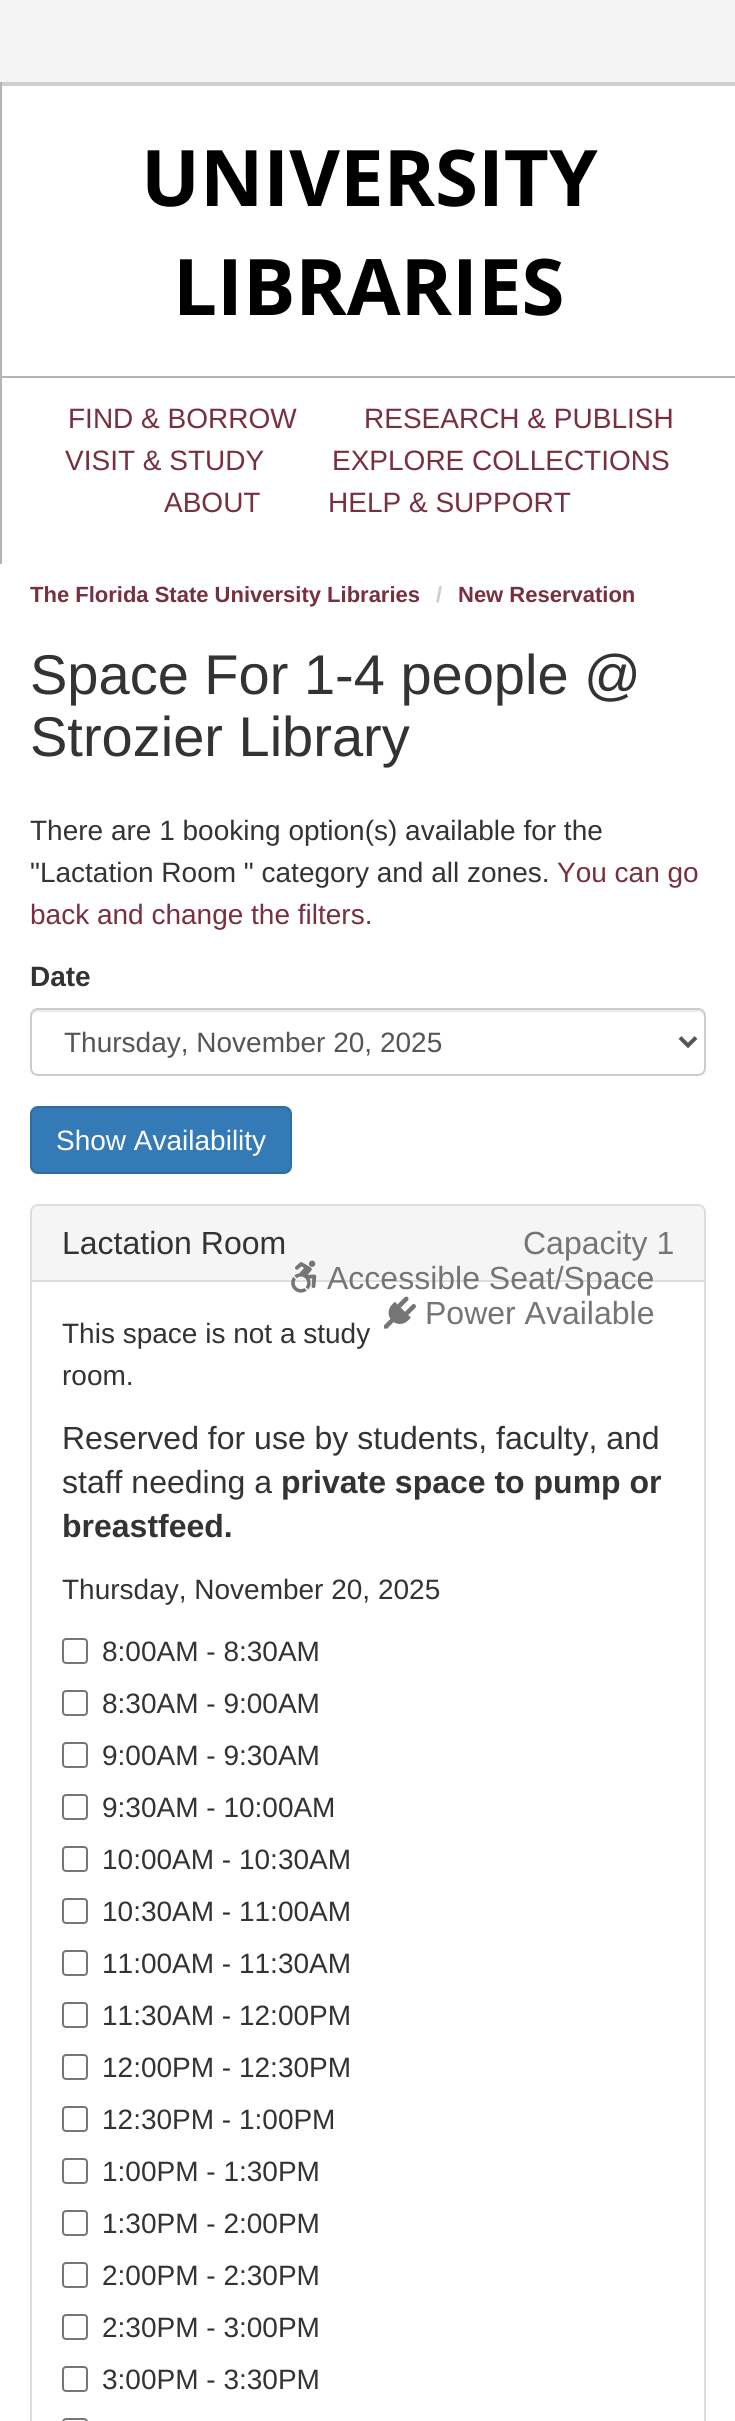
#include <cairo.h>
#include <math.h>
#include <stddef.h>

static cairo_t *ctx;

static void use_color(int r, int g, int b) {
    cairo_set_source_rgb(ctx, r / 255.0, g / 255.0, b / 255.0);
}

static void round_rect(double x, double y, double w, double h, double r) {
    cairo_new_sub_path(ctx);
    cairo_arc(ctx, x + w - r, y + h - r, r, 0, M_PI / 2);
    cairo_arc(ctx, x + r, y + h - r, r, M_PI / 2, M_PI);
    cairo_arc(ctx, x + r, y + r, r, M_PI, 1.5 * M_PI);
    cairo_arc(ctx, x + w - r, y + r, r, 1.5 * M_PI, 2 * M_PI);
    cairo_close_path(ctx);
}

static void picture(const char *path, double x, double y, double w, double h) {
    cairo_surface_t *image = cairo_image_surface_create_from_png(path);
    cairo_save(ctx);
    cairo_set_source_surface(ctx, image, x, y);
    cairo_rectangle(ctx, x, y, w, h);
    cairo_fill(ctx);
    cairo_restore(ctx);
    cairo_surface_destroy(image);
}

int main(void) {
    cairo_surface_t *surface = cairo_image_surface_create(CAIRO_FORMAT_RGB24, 735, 2421);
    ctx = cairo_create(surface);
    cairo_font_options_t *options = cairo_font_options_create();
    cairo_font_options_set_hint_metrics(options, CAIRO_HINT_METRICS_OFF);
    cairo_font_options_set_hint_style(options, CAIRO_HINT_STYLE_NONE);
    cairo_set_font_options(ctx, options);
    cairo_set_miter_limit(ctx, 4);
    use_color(255, 255, 255);
    cairo_paint(ctx);
    use_color(244, 244, 244);
    cairo_rectangle(ctx, 0, 0, 735, 82);
    cairo_fill(ctx);
    use_color(207, 207, 207);
    cairo_rectangle(ctx, 0, 82, 735, 2);
    cairo_fill(ctx);
    use_color(180, 180, 181);
    cairo_rectangle(ctx, 0, 82, 2, 482);
    cairo_fill(ctx);
    use_color(207, 207, 207);
    cairo_rectangle(ctx, 2, 84, 733, 2);
    cairo_fill(ctx);
    use_color(180, 180, 181);
    cairo_rectangle(ctx, 2, 376, 733, 2);
    cairo_fill(ctx);
    cairo_select_font_face(ctx, "Open Sans", CAIRO_FONT_SLANT_NORMAL, CAIRO_FONT_WEIGHT_BOLD);
    cairo_set_font_size(ctx, 78);
    use_color(0, 0, 0);
    cairo_move_to(ctx, 141, 206);
    cairo_show_text(ctx, "UNIVERSITY");
    cairo_move_to(ctx, 173, 315);
    cairo_show_text(ctx, "LIBRARIES");
    cairo_select_font_face(ctx, "Liberation Sans", CAIRO_FONT_SLANT_NORMAL, CAIRO_FONT_WEIGHT_NORMAL);
    cairo_set_font_size(ctx, 28);
    use_color(120, 47, 64);
    cairo_move_to(ctx, 68, 428);
    cairo_show_text(ctx, "FIND & BORROW");
    cairo_move_to(ctx, 364, 428);
    cairo_show_text(ctx, "RESEARCH & PUBLISH");
    cairo_move_to(ctx, 65, 470);
    cairo_show_text(ctx, "VISIT & STUDY");
    cairo_move_to(ctx, 332, 470);
    cairo_show_text(ctx, "EXPLORE COLLECTIONS");
    cairo_move_to(ctx, 164, 512);
    cairo_show_text(ctx, "ABOUT");
    cairo_move_to(ctx, 328, 512);
    cairo_show_text(ctx, "HELP & SUPPORT");
    cairo_select_font_face(ctx, "Liberation Sans", CAIRO_FONT_SLANT_NORMAL, CAIRO_FONT_WEIGHT_BOLD);
    cairo_set_font_size(ctx, 22);
    cairo_move_to(ctx, 30, 602);
    cairo_show_text(ctx, "The Florida State University Libraries");
    use_color(204, 204, 204);
    cairo_move_to(ctx, 436, 602);
    cairo_show_text(ctx, "/");
    use_color(120, 47, 64);
    cairo_move_to(ctx, 458, 602);
    cairo_show_text(ctx, "New Reservation");
    cairo_select_font_face(ctx, "Liberation Sans", CAIRO_FONT_SLANT_NORMAL, CAIRO_FONT_WEIGHT_NORMAL);
    cairo_set_font_size(ctx, 56);
    use_color(51, 51, 51);
    cairo_move_to(ctx, 30, 694);
    cairo_show_text(ctx, "Space For 1-4 people @");
    cairo_move_to(ctx, 30, 756);
    cairo_show_text(ctx, "Strozier Library");
    cairo_set_font_size(ctx, 28);
    cairo_move_to(ctx, 30, 840);
    cairo_show_text(ctx, "There are 1 booking option(s) available for the");
    cairo_move_to(ctx, 30, 882);
    cairo_show_text(ctx, "\"Lactation Room \" category and all zones.");
    use_color(120, 47, 64);
    cairo_move_to(ctx, 557, 882);
    cairo_show_text(ctx, "You can go");
    cairo_move_to(ctx, 30, 924);
    cairo_show_text(ctx, "back and change the filters.");
    cairo_select_font_face(ctx, "Liberation Sans", CAIRO_FONT_SLANT_NORMAL, CAIRO_FONT_WEIGHT_BOLD);
    use_color(51, 51, 51);
    cairo_move_to(ctx, 30, 986);
    cairo_show_text(ctx, "Date");
    use_color(236, 236, 236);
    cairo_new_path(ctx);
    cairo_move_to(ctx, 38, 1012);
    cairo_line_to(ctx, 698, 1012);
    cairo_curve_to(ctx, 701, 1012, 704, 1015, 704, 1018);
    cairo_curve_to(ctx, 704, 1014, 703, 1010, 698, 1010);
    cairo_line_to(ctx, 38, 1010);
    cairo_curve_to(ctx, 33, 1010, 32, 1014, 32, 1018);
    cairo_curve_to(ctx, 32, 1015, 35, 1012, 38, 1012);
    cairo_close_path(ctx);
    cairo_fill(ctx);
    round_rect(31, 1009, 674, 66, 7);
    use_color(204, 204, 204);
    cairo_stroke(ctx);
    cairo_new_path(ctx);
    cairo_move_to(ctx, 680, 1037.5);
    cairo_line_to(ctx, 688, 1045.5);
    cairo_line_to(ctx, 696, 1037.5);
    use_color(85, 85, 85);
    cairo_set_line_width(ctx, 4);
    cairo_stroke(ctx);
    cairo_select_font_face(ctx, "Liberation Sans", CAIRO_FONT_SLANT_NORMAL, CAIRO_FONT_WEIGHT_NORMAL);
    cairo_move_to(ctx, 64, 1052);
    cairo_show_text(ctx, "Thursday, November 20, 2025");
    use_color(51, 122, 183);
    round_rect(31, 1107, 260, 66, 7);
    cairo_fill_preserve(ctx);
    use_color(46, 109, 164);
    cairo_set_line_width(ctx, 2);
    cairo_stroke(ctx);
    use_color(255, 255, 255);
    cairo_move_to(ctx, 56, 1150);
    cairo_show_text(ctx, "Show Availability");
    round_rect(31, 1205, 674, 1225, 7);
    use_color(221, 221, 221);
    cairo_stroke(ctx);
    use_color(245, 245, 245);
    cairo_new_path(ctx);
    cairo_move_to(ctx, 38, 1206);
    cairo_line_to(ctx, 698, 1206);
    cairo_curve_to(ctx, 701.5, 1206, 704, 1208.5, 704, 1212);
    cairo_line_to(ctx, 704, 1282);
    cairo_line_to(ctx, 32, 1282);
    cairo_line_to(ctx, 32, 1212);
    cairo_curve_to(ctx, 32, 1208.5, 34.5, 1206, 38, 1206);
    cairo_close_path(ctx);
    cairo_fill(ctx);
    use_color(221, 221, 221);
    cairo_rectangle(ctx, 32, 1280, 672, 2);
    cairo_fill(ctx);
    cairo_set_font_size(ctx, 32);
    use_color(51, 51, 51);
    cairo_move_to(ctx, 62, 1254);
    cairo_show_text(ctx, "Lactation Room");
    use_color(117, 117, 117);
    cairo_move_to(ctx, 523, 1254);
    cairo_show_text(ctx, "Capacity 1");
    picture("img1.png", 291, 1260, 26, 33);
    cairo_move_to(ctx, 327, 1289);
    cairo_show_text(ctx, "Accessible Seat/Space");
    picture("img2.png", 384, 1296, 32, 33);
    cairo_move_to(ctx, 425, 1324);
    cairo_show_text(ctx, "Power Available");
    cairo_set_font_size(ctx, 28);
    use_color(51, 51, 51);
    cairo_move_to(ctx, 62, 1343);
    cairo_show_text(ctx, "This space is not a study");
    cairo_move_to(ctx, 62, 1385);
    cairo_show_text(ctx, "room.");
    cairo_set_font_size(ctx, 32);
    cairo_move_to(ctx, 62, 1449);
    cairo_show_text(ctx, "Reserved for use by students, faculty, and");
    cairo_move_to(ctx, 62, 1493);
    cairo_show_text(ctx, "staff needing a");
    cairo_select_font_face(ctx, "Liberation Sans", CAIRO_FONT_SLANT_NORMAL, CAIRO_FONT_WEIGHT_BOLD);
    cairo_move_to(ctx, 281, 1493);
    cairo_show_text(ctx, "private space to pump or");
    cairo_move_to(ctx, 62, 1537);
    cairo_show_text(ctx, "breastfeed.");
    cairo_select_font_face(ctx, "Liberation Sans", CAIRO_FONT_SLANT_NORMAL, CAIRO_FONT_WEIGHT_NORMAL);
    cairo_set_font_size(ctx, 28);
    cairo_move_to(ctx, 62, 1599);
    cairo_show_text(ctx, "Thursday, November 20, 2025");
    round_rect(63, 1639, 24, 24, 3);
    use_color(118, 118, 118);
    cairo_stroke(ctx);
    use_color(51, 51, 51);
    cairo_move_to(ctx, 102, 1661);
    cairo_show_text(ctx, "8:00AM - 8:30AM");
    round_rect(63, 1691, 24, 24, 3);
    use_color(118, 118, 118);
    cairo_stroke(ctx);
    use_color(51, 51, 51);
    cairo_move_to(ctx, 102, 1713);
    cairo_show_text(ctx, "8:30AM - 9:00AM");
    round_rect(63, 1743, 24, 24, 3);
    use_color(118, 118, 118);
    cairo_stroke(ctx);
    use_color(51, 51, 51);
    cairo_move_to(ctx, 102, 1765);
    cairo_show_text(ctx, "9:00AM - 9:30AM");
    round_rect(63, 1795, 24, 24, 3);
    use_color(118, 118, 118);
    cairo_stroke(ctx);
    use_color(51, 51, 51);
    cairo_move_to(ctx, 102, 1817);
    cairo_show_text(ctx, "9:30AM - 10:00AM");
    round_rect(63, 1847, 24, 24, 3);
    use_color(118, 118, 118);
    cairo_stroke(ctx);
    use_color(51, 51, 51);
    cairo_move_to(ctx, 102, 1869);
    cairo_show_text(ctx, "10:00AM - 10:30AM");
    round_rect(63, 1899, 24, 24, 3);
    use_color(118, 118, 118);
    cairo_stroke(ctx);
    use_color(51, 51, 51);
    cairo_move_to(ctx, 102, 1921);
    cairo_show_text(ctx, "10:30AM - 11:00AM");
    round_rect(63, 1951, 24, 24, 3);
    use_color(118, 118, 118);
    cairo_stroke(ctx);
    use_color(51, 51, 51);
    cairo_move_to(ctx, 102, 1973);
    cairo_show_text(ctx, "11:00AM - 11:30AM");
    round_rect(63, 2003, 24, 24, 3);
    use_color(118, 118, 118);
    cairo_stroke(ctx);
    use_color(51, 51, 51);
    cairo_move_to(ctx, 102, 2025);
    cairo_show_text(ctx, "11:30AM - 12:00PM");
    round_rect(63, 2055, 24, 24, 3);
    use_color(118, 118, 118);
    cairo_stroke(ctx);
    use_color(51, 51, 51);
    cairo_move_to(ctx, 102, 2077);
    cairo_show_text(ctx, "12:00PM - 12:30PM");
    round_rect(63, 2107, 24, 24, 3);
    use_color(118, 118, 118);
    cairo_stroke(ctx);
    use_color(51, 51, 51);
    cairo_move_to(ctx, 102, 2129);
    cairo_show_text(ctx, "12:30PM - 1:00PM");
    round_rect(63, 2159, 24, 24, 3);
    use_color(118, 118, 118);
    cairo_stroke(ctx);
    use_color(51, 51, 51);
    cairo_move_to(ctx, 102, 2181);
    cairo_show_text(ctx, "1:00PM - 1:30PM");
    round_rect(63, 2211, 24, 24, 3);
    use_color(118, 118, 118);
    cairo_stroke(ctx);
    use_color(51, 51, 51);
    cairo_move_to(ctx, 102, 2233);
    cairo_show_text(ctx, "1:30PM - 2:00PM");
    round_rect(63, 2263, 24, 24, 3);
    use_color(118, 118, 118);
    cairo_stroke(ctx);
    use_color(51, 51, 51);
    cairo_move_to(ctx, 102, 2285);
    cairo_show_text(ctx, "2:00PM - 2:30PM");
    round_rect(63, 2315, 24, 24, 3);
    use_color(118, 118, 118);
    cairo_stroke(ctx);
    use_color(51, 51, 51);
    cairo_move_to(ctx, 102, 2337);
    cairo_show_text(ctx, "2:30PM - 3:00PM");
    round_rect(63, 2367, 24, 24, 3);
    use_color(118, 118, 118);
    cairo_stroke(ctx);
    use_color(51, 51, 51);
    cairo_move_to(ctx, 102, 2389);
    cairo_show_text(ctx, "3:00PM - 3:30PM");
    round_rect(63, 2419, 24, 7, 3);
    use_color(118, 118, 118);
    cairo_stroke(ctx);
    cairo_surface_write_to_png(surface, "result.png");
    cairo_font_options_destroy(options);
    cairo_destroy(ctx);
    cairo_surface_destroy(surface);
    return 0;
}
